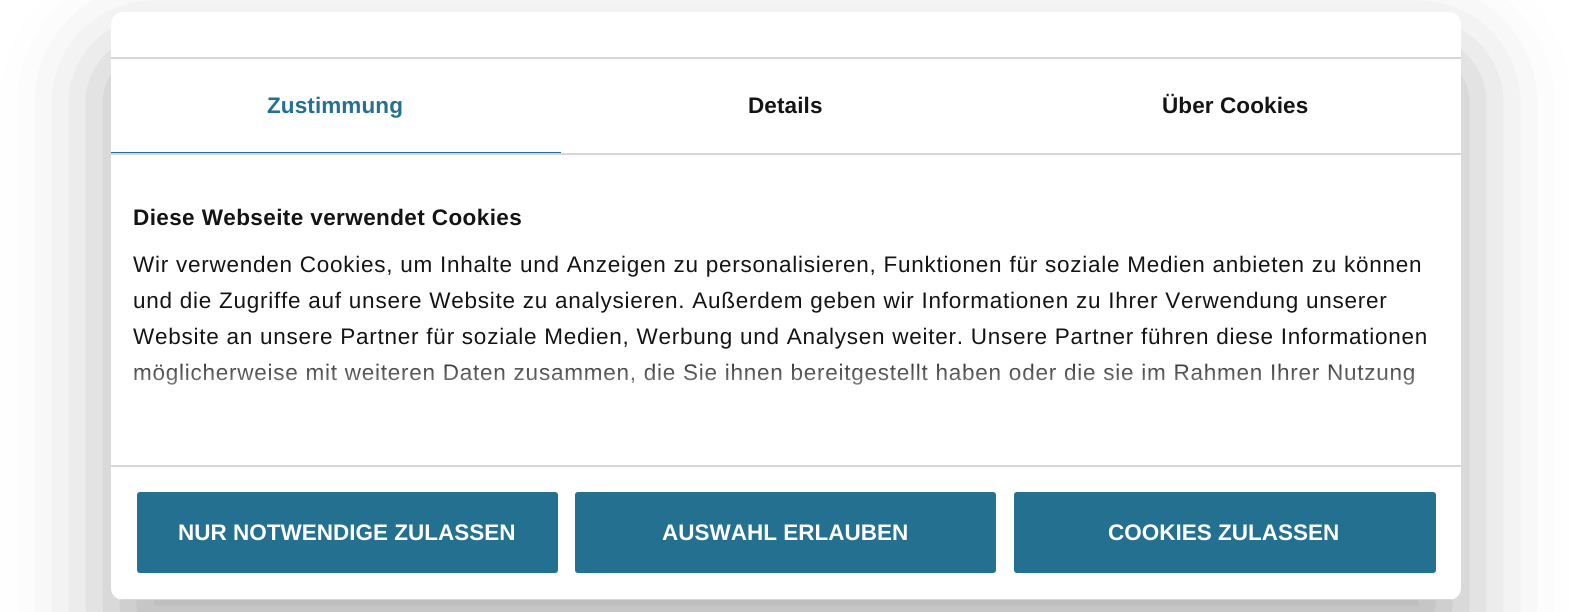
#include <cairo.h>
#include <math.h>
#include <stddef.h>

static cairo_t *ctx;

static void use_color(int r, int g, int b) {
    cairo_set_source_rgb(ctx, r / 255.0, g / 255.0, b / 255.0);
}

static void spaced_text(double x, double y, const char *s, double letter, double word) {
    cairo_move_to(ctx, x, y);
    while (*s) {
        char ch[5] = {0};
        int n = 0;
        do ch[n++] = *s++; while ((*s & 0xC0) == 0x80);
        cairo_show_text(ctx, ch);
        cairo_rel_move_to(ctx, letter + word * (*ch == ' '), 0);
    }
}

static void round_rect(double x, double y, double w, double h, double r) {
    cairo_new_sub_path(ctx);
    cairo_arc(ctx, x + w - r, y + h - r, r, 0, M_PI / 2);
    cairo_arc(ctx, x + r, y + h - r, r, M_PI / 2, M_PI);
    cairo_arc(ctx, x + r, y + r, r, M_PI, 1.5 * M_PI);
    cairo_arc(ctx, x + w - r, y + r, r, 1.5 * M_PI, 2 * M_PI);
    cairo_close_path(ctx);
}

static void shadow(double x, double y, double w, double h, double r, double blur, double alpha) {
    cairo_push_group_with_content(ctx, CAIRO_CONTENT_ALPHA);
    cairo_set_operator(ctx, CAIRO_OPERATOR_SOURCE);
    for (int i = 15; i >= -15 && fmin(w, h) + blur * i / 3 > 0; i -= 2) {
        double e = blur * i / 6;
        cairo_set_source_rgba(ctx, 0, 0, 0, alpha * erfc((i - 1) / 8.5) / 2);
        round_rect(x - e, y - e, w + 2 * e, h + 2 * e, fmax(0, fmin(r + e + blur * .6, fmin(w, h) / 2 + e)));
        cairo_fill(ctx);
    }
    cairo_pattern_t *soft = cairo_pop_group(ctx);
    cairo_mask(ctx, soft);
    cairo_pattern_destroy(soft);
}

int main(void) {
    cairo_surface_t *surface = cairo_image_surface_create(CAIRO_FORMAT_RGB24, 1570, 612);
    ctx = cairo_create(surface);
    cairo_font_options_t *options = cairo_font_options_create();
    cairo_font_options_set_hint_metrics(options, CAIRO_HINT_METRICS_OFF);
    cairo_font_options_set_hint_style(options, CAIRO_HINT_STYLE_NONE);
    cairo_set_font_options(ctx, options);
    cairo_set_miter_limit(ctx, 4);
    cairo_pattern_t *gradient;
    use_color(255, 255, 255);
    cairo_paint(ctx);
    use_color(0, 0, 0);
    shadow(111, 60, 1350, 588, 12, 51, 0.3);
    use_color(255, 255, 255);
    round_rect(111, 12, 1350, 588, 12);
    cairo_fill(ctx);
    use_color(214, 214, 214);
    cairo_rectangle(ctx, 111, 57, 1350, 2);
    cairo_fill(ctx);
    cairo_rectangle(ctx, 111, 153, 1350, 2);
    cairo_fill(ctx);
    use_color(36, 112, 145);
    cairo_rectangle(ctx, 111, 152, 450, 1);
    cairo_fill(ctx);
    cairo_select_font_face(ctx, "Liberation Sans", CAIRO_FONT_SLANT_NORMAL, CAIRO_FONT_WEIGHT_BOLD);
    cairo_set_font_size(ctx, 22.5);
    spaced_text(267, 113, "Zustimmung", 0.1, 0);
    use_color(20, 20, 20);
    spaced_text(748, 113, "Details", 0.1, 0);
    spaced_text(1162, 113, "Über Cookies", 0.1, 0);
    use_color(214, 214, 214);
    cairo_rectangle(ctx, 111, 465, 1350, 2);
    cairo_fill(ctx);
    use_color(20, 20, 20);
    spaced_text(133, 225, "Diese Webseite verwendet Cookies", 0.4, 0);
    cairo_select_font_face(ctx, "Liberation Sans", CAIRO_FONT_SLANT_NORMAL, CAIRO_FONT_WEIGHT_NORMAL);
    spaced_text(133, 272, "Wir verwenden Cookies, um Inhalte und Anzeigen zu personalisieren, Funktionen für soziale Medien anbieten zu können", 0.75, 0);
    spaced_text(133, 308, "und die Zugriffe auf unsere Website zu analysieren. Außerdem geben wir Informationen zu Ihrer Verwendung unserer", 0.75, 0);
    spaced_text(133, 344, "Website an unsere Partner für soziale Medien, Werbung und Analysen weiter. Unsere Partner führen diese Informationen", 0.75, 0);
    spaced_text(133, 380, "möglicherweise mit weiteren Daten zusammen, die Sie ihnen bereitgestellt haben oder die sie im Rahmen Ihrer Nutzung", 0.75, 0);
    gradient = cairo_pattern_create_linear(776, 465, 776, 353);
    cairo_pattern_add_color_stop_rgba(gradient, 0, 1, 1, 1, 1);
    cairo_pattern_add_color_stop_rgba(gradient, 0.5, 1, 1, 1, 0.8);
    cairo_pattern_add_color_stop_rgba(gradient, 1, 1, 1, 1, 0);
    cairo_set_source(ctx, gradient);
    cairo_pattern_destroy(gradient);
    cairo_rectangle(ctx, 134, 363, 1280, 22);
    cairo_fill(ctx);
    cairo_save(ctx);
    round_rect(111, 12, 1350, 588, 12);
    cairo_clip(ctx);
    use_color(214, 214, 214);
    cairo_rectangle(ctx, 111, 599, 1350, 1);
    cairo_fill(ctx);
    cairo_restore(ctx);
    use_color(36, 112, 145);
    round_rect(135.5, 490.5, 424, 84, 4.5);
    cairo_fill_preserve(ctx);
    use_color(255, 255, 255);
    cairo_set_line_width(ctx, 3);
    cairo_stroke(ctx);
    cairo_select_font_face(ctx, "Liberation Sans", CAIRO_FONT_SLANT_NORMAL, CAIRO_FONT_WEIGHT_BOLD);
    cairo_move_to(ctx, 178, 540);
    cairo_show_text(ctx, "NUR NOTWENDIGE ZULASSEN");
    use_color(36, 112, 145);
    round_rect(573.5, 490.5, 424, 84, 4.5);
    cairo_fill_preserve(ctx);
    use_color(255, 255, 255);
    cairo_stroke(ctx);
    cairo_move_to(ctx, 662, 540);
    cairo_show_text(ctx, "AUSWAHL ERLAUBEN");
    use_color(36, 112, 145);
    round_rect(1012.5, 490.5, 425, 84, 4.5);
    cairo_fill_preserve(ctx);
    use_color(255, 255, 255);
    cairo_stroke(ctx);
    cairo_move_to(ctx, 1108, 540);
    cairo_show_text(ctx, "COOKIES ZULASSEN");
    cairo_surface_write_to_png(surface, "result.png");
    cairo_font_options_destroy(options);
    cairo_destroy(ctx);
    cairo_surface_destroy(surface);
    return 0;
}
